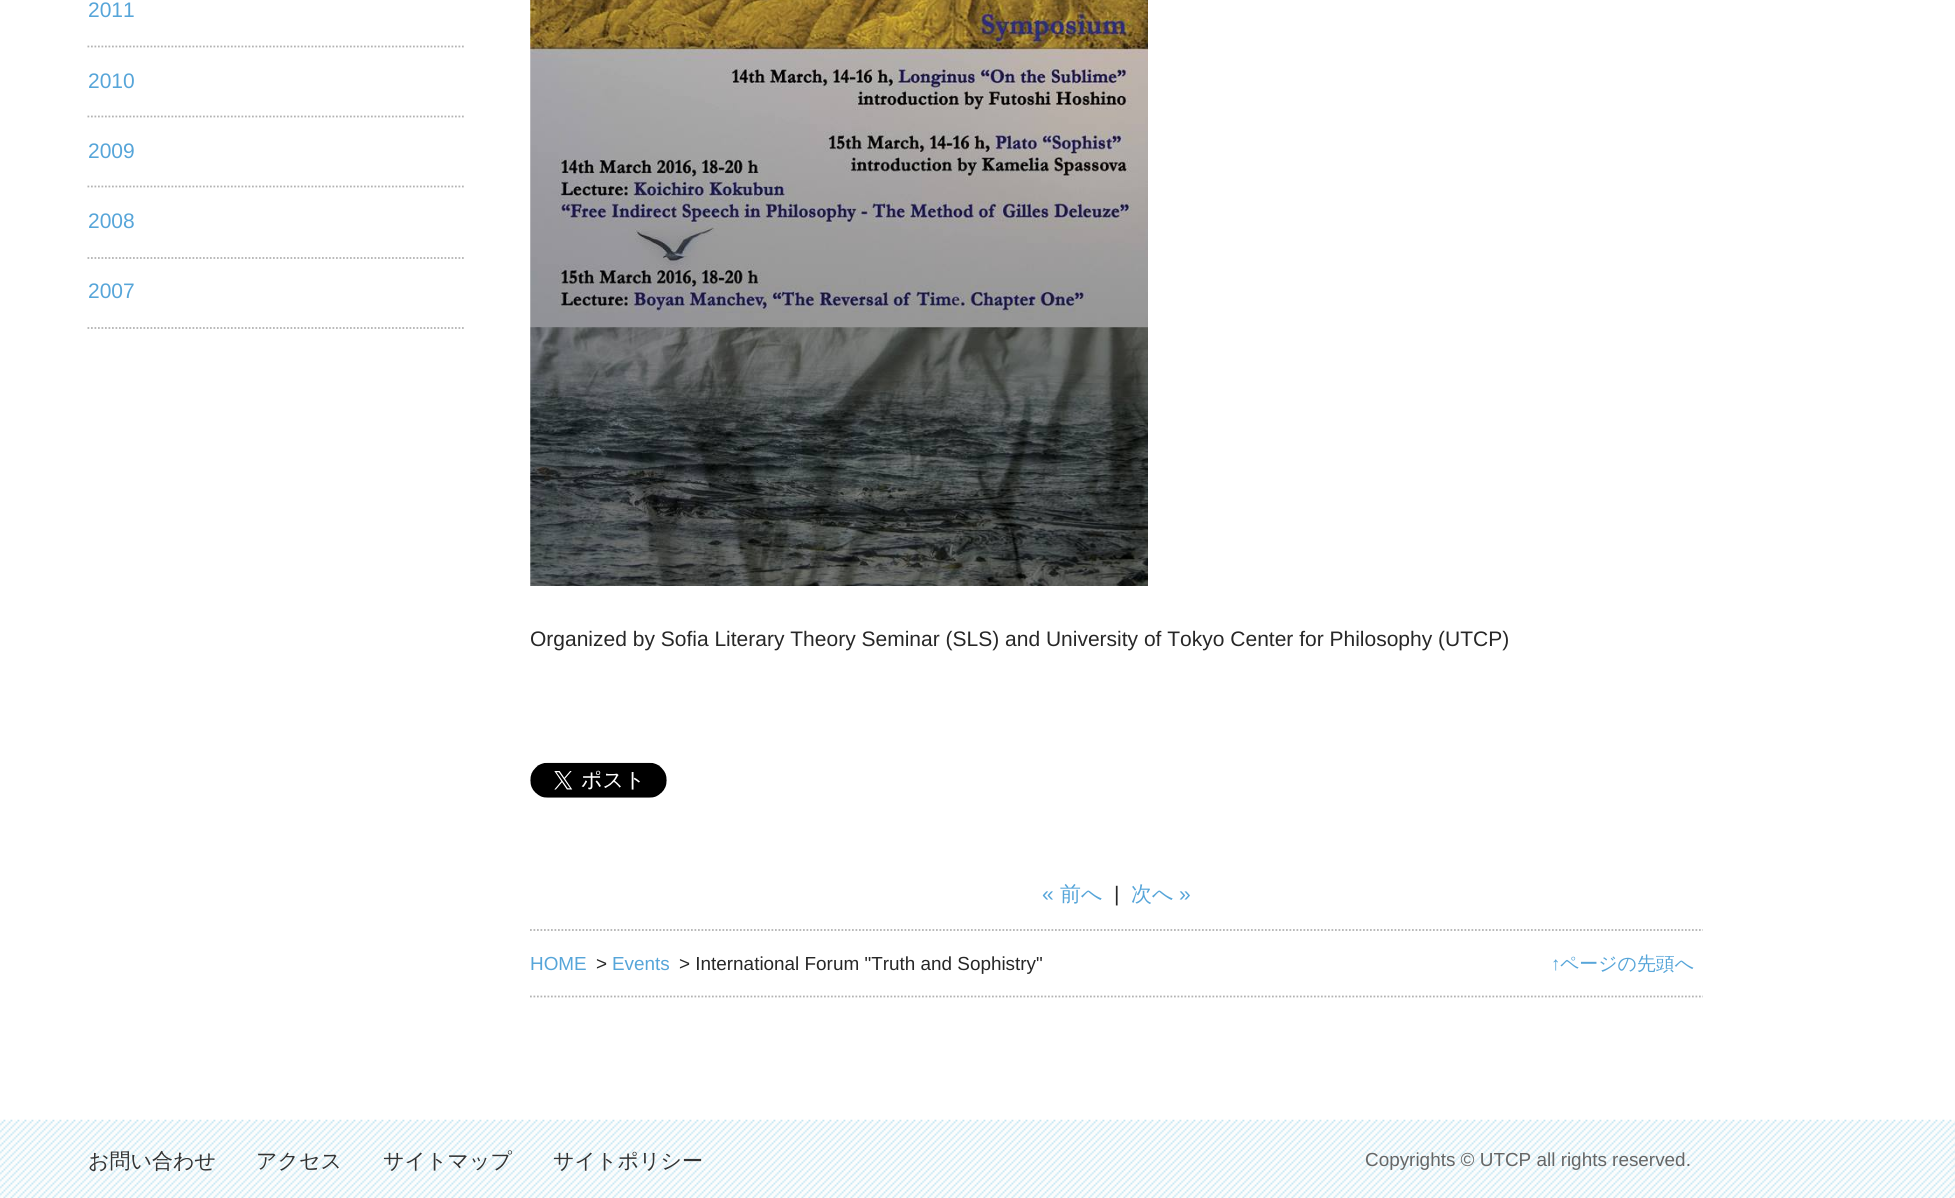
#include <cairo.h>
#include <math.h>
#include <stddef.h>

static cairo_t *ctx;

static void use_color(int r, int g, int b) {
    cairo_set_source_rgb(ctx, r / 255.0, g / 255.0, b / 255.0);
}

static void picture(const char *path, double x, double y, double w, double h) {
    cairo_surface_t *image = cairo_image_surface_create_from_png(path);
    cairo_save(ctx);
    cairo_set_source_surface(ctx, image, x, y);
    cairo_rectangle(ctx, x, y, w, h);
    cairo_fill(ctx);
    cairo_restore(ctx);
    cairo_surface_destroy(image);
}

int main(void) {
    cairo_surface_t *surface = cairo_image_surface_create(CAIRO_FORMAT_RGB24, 1955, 1198);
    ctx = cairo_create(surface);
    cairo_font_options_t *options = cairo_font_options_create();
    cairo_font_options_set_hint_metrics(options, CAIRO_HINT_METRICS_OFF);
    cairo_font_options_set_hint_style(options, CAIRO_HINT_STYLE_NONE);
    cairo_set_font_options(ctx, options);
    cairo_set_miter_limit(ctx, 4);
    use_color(255, 255, 255);
    cairo_paint(ctx);
    cairo_new_path(ctx);
    cairo_move_to(ctx, 87.5, 46.5);
    cairo_line_to(ctx, 464, 46.5);
    use_color(179, 179, 179);
    cairo_set_line_width(ctx, 1.8);
    cairo_set_dash(ctx, (double[]){1.75, 1.75}, 2, 0);
    cairo_stroke(ctx);
    cairo_select_font_face(ctx, "Liberation Sans", CAIRO_FONT_SLANT_NORMAL, CAIRO_FONT_WEIGHT_NORMAL);
    cairo_set_font_size(ctx, 21);
    use_color(86, 165, 217);
    cairo_move_to(ctx, 88, 17);
    cairo_show_text(ctx, "2011");
    cairo_new_path(ctx);
    cairo_move_to(ctx, 87.5, 116.5);
    cairo_line_to(ctx, 464, 116.5);
    use_color(179, 179, 179);
    cairo_stroke(ctx);
    use_color(86, 165, 217);
    cairo_move_to(ctx, 88, 88);
    cairo_show_text(ctx, "2010");
    cairo_new_path(ctx);
    cairo_move_to(ctx, 87.5, 186.5);
    cairo_line_to(ctx, 464, 186.5);
    use_color(179, 179, 179);
    cairo_stroke(ctx);
    use_color(86, 165, 217);
    cairo_move_to(ctx, 88, 158);
    cairo_show_text(ctx, "2009");
    cairo_new_path(ctx);
    cairo_move_to(ctx, 87.5, 258);
    cairo_line_to(ctx, 464, 258);
    use_color(179, 179, 179);
    cairo_stroke(ctx);
    use_color(86, 165, 217);
    cairo_move_to(ctx, 88, 228);
    cairo_show_text(ctx, "2008");
    cairo_new_path(ctx);
    cairo_move_to(ctx, 87.5, 328);
    cairo_line_to(ctx, 464, 328);
    use_color(179, 179, 179);
    cairo_stroke(ctx);
    use_color(86, 165, 217);
    cairo_move_to(ctx, 88, 298);
    cairo_show_text(ctx, "2007");
    picture("img1.png", 530, 0, 618, 586);
    use_color(39, 39, 39);
    cairo_move_to(ctx, 530, 646);
    cairo_show_text(ctx, "Organized by Sofia Literary Theory Seminar (SLS) and University of Tokyo Center for Philosophy (UTCP)");
    picture("img2.png", 530, 762, 137, 36);
    use_color(86, 165, 217);
    cairo_move_to(ctx, 1042, 901);
    cairo_show_text(ctx, "«");
    cairo_select_font_face(ctx, "WenQuanYi Zen Hei Medium", CAIRO_FONT_SLANT_NORMAL, CAIRO_FONT_WEIGHT_NORMAL);
    cairo_move_to(ctx, 1060, 901);
    cairo_show_text(ctx, "前へ");
    cairo_select_font_face(ctx, "Liberation Sans", CAIRO_FONT_SLANT_NORMAL, CAIRO_FONT_WEIGHT_NORMAL);
    use_color(39, 39, 39);
    cairo_move_to(ctx, 1114, 901);
    cairo_show_text(ctx, "|");
    cairo_select_font_face(ctx, "WenQuanYi Zen Hei Medium", CAIRO_FONT_SLANT_NORMAL, CAIRO_FONT_WEIGHT_NORMAL);
    use_color(86, 165, 217);
    cairo_move_to(ctx, 1131, 901);
    cairo_show_text(ctx, "次へ");
    cairo_select_font_face(ctx, "Liberation Sans", CAIRO_FONT_SLANT_NORMAL, CAIRO_FONT_WEIGHT_NORMAL);
    cairo_move_to(ctx, 1179, 901);
    cairo_show_text(ctx, "»");
    cairo_new_path(ctx);
    cairo_move_to(ctx, 530, 930);
    cairo_line_to(ctx, 1703, 930);
    use_color(179, 179, 179);
    cairo_stroke(ctx);
    cairo_new_path(ctx);
    cairo_move_to(ctx, 530, 996.5);
    cairo_line_to(ctx, 1703, 996.5);
    cairo_stroke(ctx);
    cairo_set_font_size(ctx, 18.9);
    use_color(86, 165, 217);
    cairo_move_to(ctx, 530, 970);
    cairo_show_text(ctx, "HOME");
    use_color(39, 39, 39);
    cairo_move_to(ctx, 596, 970);
    cairo_show_text(ctx, ">");
    use_color(86, 165, 217);
    cairo_move_to(ctx, 612, 970);
    cairo_show_text(ctx, "Events");
    use_color(39, 39, 39);
    cairo_move_to(ctx, 679, 970);
    cairo_show_text(ctx, "> International Forum \"Truth and Sophistry\"");
    use_color(86, 165, 217);
    cairo_move_to(ctx, 1551, 970);
    cairo_show_text(ctx, "↑");
    cairo_select_font_face(ctx, "WenQuanYi Zen Hei Medium", CAIRO_FONT_SLANT_NORMAL, CAIRO_FONT_WEIGHT_NORMAL);
    cairo_move_to(ctx, 1560, 970);
    cairo_show_text(ctx, "ページの先頭へ");
    picture("img3.png", 0, 1119, 1955, 79);
    cairo_set_font_size(ctx, 21);
    use_color(51, 51, 51);
    cairo_move_to(ctx, 88, 1168);
    cairo_show_text(ctx, "お問い合わせ");
    cairo_move_to(ctx, 256, 1168);
    cairo_show_text(ctx, "アクセス");
    cairo_move_to(ctx, 383, 1168);
    cairo_show_text(ctx, "サイトマップ");
    cairo_move_to(ctx, 553, 1168);
    cairo_show_text(ctx, "サイトポリシー");
    cairo_select_font_face(ctx, "Liberation Sans", CAIRO_FONT_SLANT_NORMAL, CAIRO_FONT_WEIGHT_NORMAL);
    cairo_set_font_size(ctx, 18.9);
    use_color(102, 102, 102);
    cairo_move_to(ctx, 1365, 1166);
    cairo_show_text(ctx, "Copyrights © UTCP all rights reserved.");
    cairo_surface_write_to_png(surface, "result.png");
    cairo_font_options_destroy(options);
    cairo_destroy(ctx);
    cairo_surface_destroy(surface);
    return 0;
}
